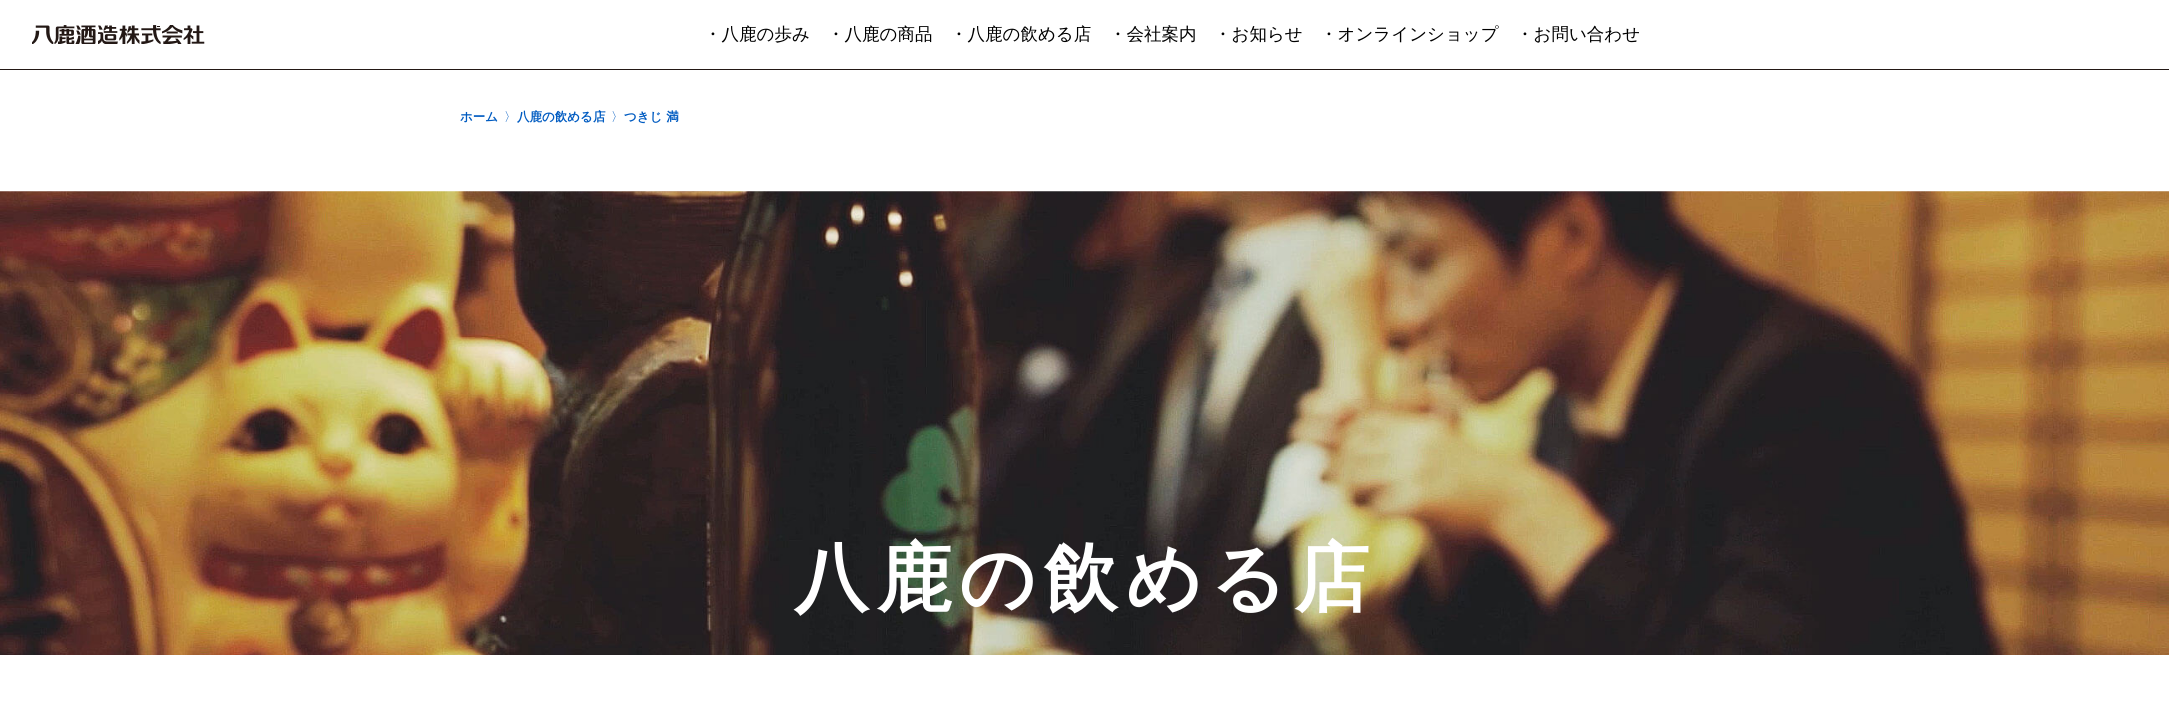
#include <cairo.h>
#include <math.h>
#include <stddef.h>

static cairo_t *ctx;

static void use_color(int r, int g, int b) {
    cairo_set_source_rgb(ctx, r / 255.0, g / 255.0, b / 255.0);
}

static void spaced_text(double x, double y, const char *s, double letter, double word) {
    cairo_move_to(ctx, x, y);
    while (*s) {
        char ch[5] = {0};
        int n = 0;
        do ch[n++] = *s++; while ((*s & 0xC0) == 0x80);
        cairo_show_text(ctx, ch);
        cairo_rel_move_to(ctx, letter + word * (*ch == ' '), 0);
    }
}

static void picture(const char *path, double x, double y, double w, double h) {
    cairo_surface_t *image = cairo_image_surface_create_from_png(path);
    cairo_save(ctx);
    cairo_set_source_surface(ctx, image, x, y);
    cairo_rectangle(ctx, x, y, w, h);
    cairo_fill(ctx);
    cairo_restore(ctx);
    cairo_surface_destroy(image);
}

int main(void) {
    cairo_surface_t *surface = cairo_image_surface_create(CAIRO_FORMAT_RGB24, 2169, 702);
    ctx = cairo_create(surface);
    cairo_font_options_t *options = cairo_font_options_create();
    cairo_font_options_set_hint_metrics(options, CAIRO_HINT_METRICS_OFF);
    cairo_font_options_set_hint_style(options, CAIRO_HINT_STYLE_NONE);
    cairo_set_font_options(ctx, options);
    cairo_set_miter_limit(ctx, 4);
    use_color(255, 255, 255);
    cairo_paint(ctx);
    use_color(35, 24, 21);
    cairo_rectangle(ctx, 0, 69, 2169, 1);
    cairo_fill(ctx);
    picture("img1.png", 32, 25, 173, 19);
    cairo_select_font_face(ctx, "WenQuanYi Zen Hei Medium", CAIRO_FONT_SLANT_NORMAL, CAIRO_FONT_WEIGHT_NORMAL);
    cairo_set_font_size(ctx, 17.5);
    use_color(0, 0, 0);
    cairo_move_to(ctx, 704, 40);
    cairo_show_text(ctx, "・八鹿の歩み");
    cairo_move_to(ctx, 827, 40);
    cairo_show_text(ctx, "・八鹿の商品");
    cairo_move_to(ctx, 950, 40);
    cairo_show_text(ctx, "・八鹿の飲める店");
    cairo_move_to(ctx, 1109, 40);
    cairo_show_text(ctx, "・会社案内");
    cairo_move_to(ctx, 1214, 40);
    cairo_show_text(ctx, "・お知らせ");
    cairo_move_to(ctx, 1320, 40);
    cairo_show_text(ctx, "・オンラインショップ");
    cairo_move_to(ctx, 1516, 40);
    cairo_show_text(ctx, "・お問い合わせ");
    cairo_select_font_face(ctx, "WenQuanYi Zen Hei", CAIRO_FONT_SLANT_NORMAL, CAIRO_FONT_WEIGHT_BOLD);
    cairo_set_font_size(ctx, 12.5);
    use_color(0, 91, 193);
    cairo_move_to(ctx, 460, 121);
    cairo_show_text(ctx, "ホーム");
    cairo_select_font_face(ctx, "WenQuanYi Zen Hei Medium", CAIRO_FONT_SLANT_NORMAL, CAIRO_FONT_WEIGHT_NORMAL);
    cairo_move_to(ctx, 504, 121);
    cairo_show_text(ctx, "〉");
    cairo_select_font_face(ctx, "WenQuanYi Zen Hei", CAIRO_FONT_SLANT_NORMAL, CAIRO_FONT_WEIGHT_BOLD);
    cairo_move_to(ctx, 517, 121);
    cairo_show_text(ctx, "八鹿の飲める店");
    cairo_select_font_face(ctx, "WenQuanYi Zen Hei Medium", CAIRO_FONT_SLANT_NORMAL, CAIRO_FONT_WEIGHT_NORMAL);
    cairo_move_to(ctx, 611, 121);
    cairo_show_text(ctx, "〉");
    cairo_select_font_face(ctx, "WenQuanYi Zen Hei", CAIRO_FONT_SLANT_NORMAL, CAIRO_FONT_WEIGHT_BOLD);
    cairo_move_to(ctx, 624, 121);
    cairo_show_text(ctx, "つきじ 満");
    picture("img2.png", 0, 191, 2169, 464);
    cairo_set_font_size(ctx, 75);
    use_color(255, 255, 255);
    spaced_text(794, 604, "八鹿の飲める店", 7.5, 0);
    cairo_surface_write_to_png(surface, "result.png");
    cairo_font_options_destroy(options);
    cairo_destroy(ctx);
    cairo_surface_destroy(surface);
    return 0;
}
